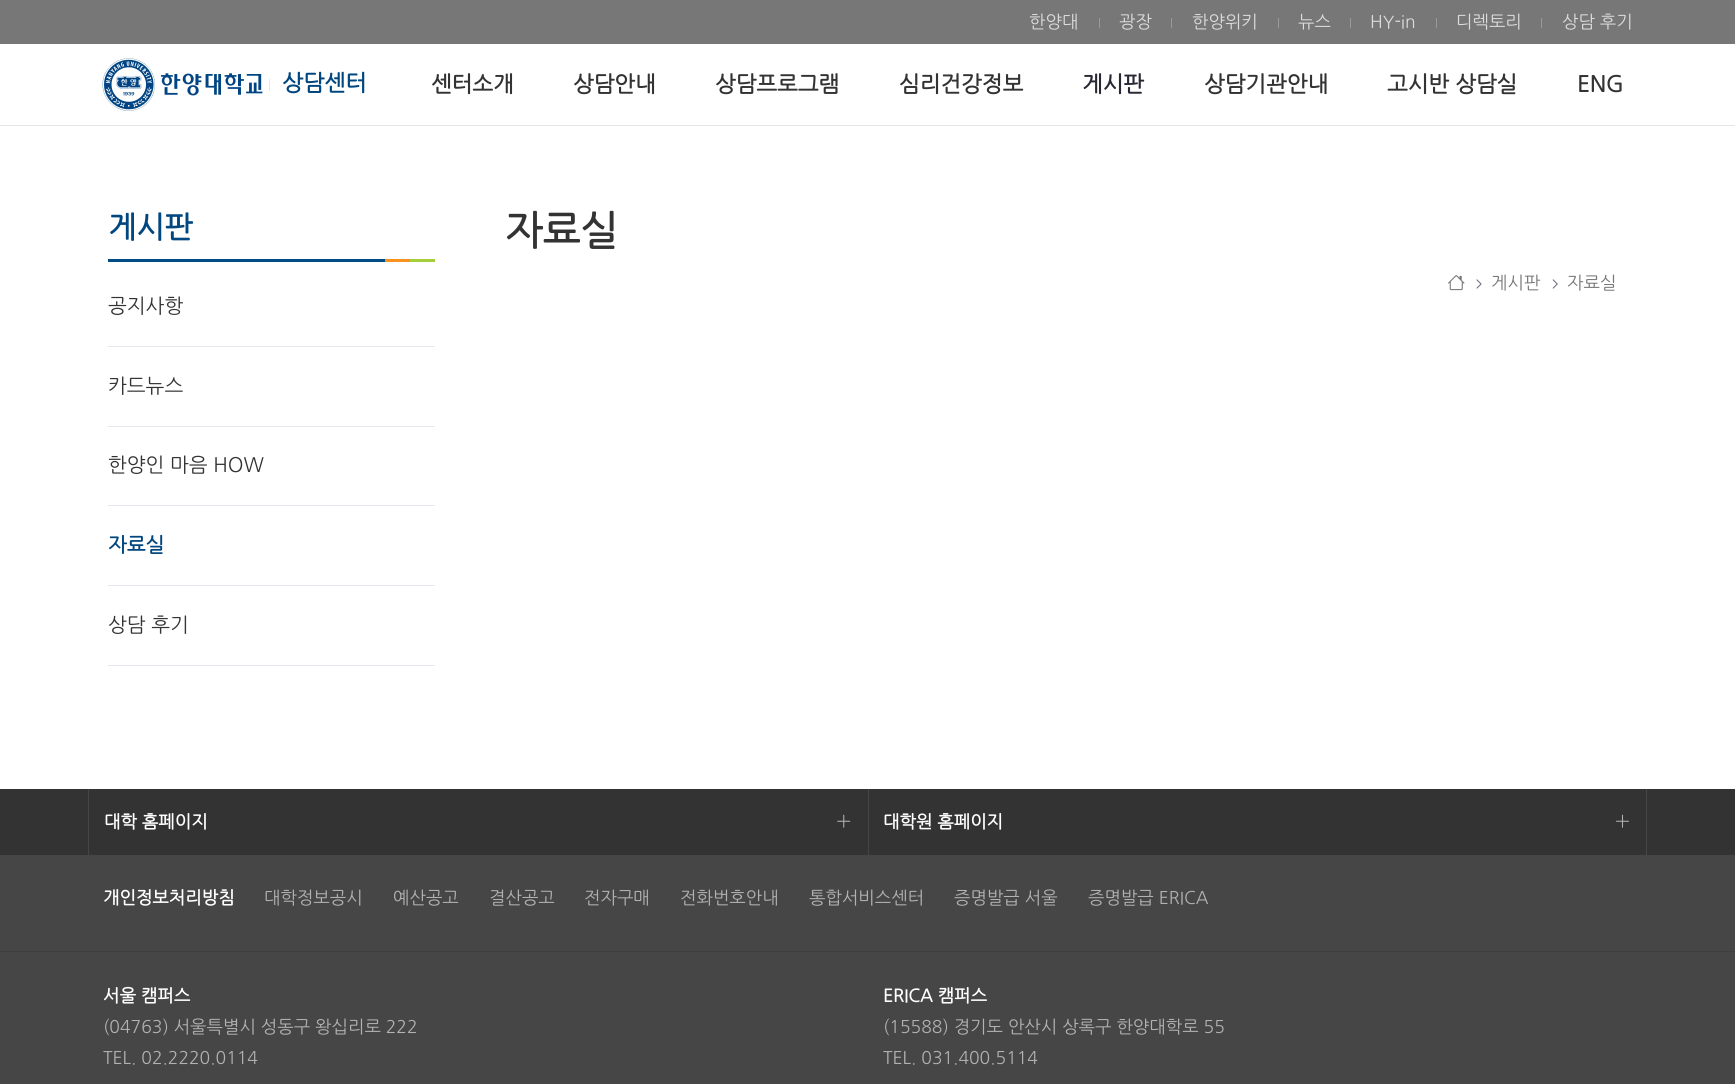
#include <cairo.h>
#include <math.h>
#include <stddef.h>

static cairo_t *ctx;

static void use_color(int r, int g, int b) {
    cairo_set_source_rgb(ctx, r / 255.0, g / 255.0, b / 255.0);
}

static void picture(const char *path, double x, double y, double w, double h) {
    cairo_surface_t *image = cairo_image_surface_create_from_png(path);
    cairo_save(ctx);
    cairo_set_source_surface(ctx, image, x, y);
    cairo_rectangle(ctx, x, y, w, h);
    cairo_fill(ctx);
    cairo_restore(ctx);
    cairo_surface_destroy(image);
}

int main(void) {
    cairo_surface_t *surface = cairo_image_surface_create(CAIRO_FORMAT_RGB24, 1735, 1084);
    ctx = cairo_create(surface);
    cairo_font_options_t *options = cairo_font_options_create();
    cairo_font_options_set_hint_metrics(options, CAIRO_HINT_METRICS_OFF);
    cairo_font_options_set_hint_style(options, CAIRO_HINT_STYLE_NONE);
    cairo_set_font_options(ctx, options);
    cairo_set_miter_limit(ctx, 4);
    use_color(255, 255, 255);
    cairo_paint(ctx);
    use_color(119, 119, 119);
    cairo_rectangle(ctx, 0, 0, 1735, 44);
    cairo_fill(ctx);
    cairo_select_font_face(ctx, "NanumGothic", CAIRO_FONT_SLANT_NORMAL, CAIRO_FONT_WEIGHT_NORMAL);
    cairo_set_font_size(ctx, 17.5);
    use_color(220, 220, 220);
    cairo_move_to(ctx, 1029, 28);
    cairo_show_text(ctx, "한양대");
    use_color(153, 153, 153);
    cairo_rectangle(ctx, 1099, 18, 1, 10);
    cairo_fill(ctx);
    use_color(220, 220, 220);
    cairo_move_to(ctx, 1119, 28);
    cairo_show_text(ctx, "광장");
    use_color(153, 153, 153);
    cairo_rectangle(ctx, 1171, 18, 1, 10);
    cairo_fill(ctx);
    use_color(220, 220, 220);
    cairo_move_to(ctx, 1192, 28);
    cairo_show_text(ctx, "한양위키");
    use_color(153, 153, 153);
    cairo_rectangle(ctx, 1278, 18, 1, 10);
    cairo_fill(ctx);
    use_color(220, 220, 220);
    cairo_move_to(ctx, 1298, 28);
    cairo_show_text(ctx, "뉴스");
    use_color(153, 153, 153);
    cairo_rectangle(ctx, 1350, 18, 1, 10);
    cairo_fill(ctx);
    use_color(220, 220, 220);
    cairo_move_to(ctx, 1370, 28);
    cairo_show_text(ctx, "HY-in");
    use_color(153, 153, 153);
    cairo_rectangle(ctx, 1436, 18, 1, 10);
    cairo_fill(ctx);
    use_color(220, 220, 220);
    cairo_move_to(ctx, 1456, 28);
    cairo_show_text(ctx, "디렉토리");
    use_color(153, 153, 153);
    cairo_rectangle(ctx, 1541, 18, 1, 10);
    cairo_fill(ctx);
    use_color(220, 220, 220);
    cairo_move_to(ctx, 1562, 28);
    cairo_show_text(ctx, "상담 후기");
    use_color(229, 229, 229);
    cairo_rectangle(ctx, 0, 125, 1735, 1);
    cairo_fill(ctx);
    picture("img1.png", 102, 58, 161, 53);
    use_color(231, 231, 237);
    cairo_rectangle(ctx, 269, 79, 1, 12);
    cairo_fill(ctx);
    cairo_select_font_face(ctx, "NanumGothic", CAIRO_FONT_SLANT_NORMAL, CAIRO_FONT_WEIGHT_BOLD);
    cairo_set_font_size(ctx, 22.5);
    use_color(0, 70, 127);
    cairo_move_to(ctx, 282, 91);
    cairo_show_text(ctx, "상담센터");
    cairo_set_font_size(ctx, 22);
    use_color(51, 51, 51);
    cairo_move_to(ctx, 431, 92);
    cairo_show_text(ctx, "센터소개");
    cairo_move_to(ctx, 573, 92);
    cairo_show_text(ctx, "상담안내");
    cairo_move_to(ctx, 715, 92);
    cairo_show_text(ctx, "상담프로그램");
    cairo_move_to(ctx, 899, 92);
    cairo_show_text(ctx, "심리건강정보");
    use_color(39, 40, 51);
    cairo_move_to(ctx, 1082, 92);
    cairo_show_text(ctx, "게시판");
    use_color(51, 51, 51);
    cairo_move_to(ctx, 1204, 92);
    cairo_show_text(ctx, "상담기관안내");
    cairo_move_to(ctx, 1387, 92);
    cairo_show_text(ctx, "고시반 상담실");
    cairo_move_to(ctx, 1577, 92);
    cairo_show_text(ctx, "ENG");
    use_color(0, 76, 134);
    cairo_rectangle(ctx, 108, 259, 277, 3);
    cairo_fill(ctx);
    cairo_set_font_size(ctx, 30);
    use_color(0, 70, 127);
    cairo_move_to(ctx, 108, 238);
    cairo_show_text(ctx, "게시판");
    use_color(247, 147, 30);
    cairo_rectangle(ctx, 385, 259, 25, 3);
    cairo_fill(ctx);
    use_color(166, 206, 58);
    cairo_rectangle(ctx, 410, 259, 25, 3);
    cairo_fill(ctx);
    use_color(231, 231, 237);
    cairo_rectangle(ctx, 108, 346, 327, 1);
    cairo_fill(ctx);
    cairo_select_font_face(ctx, "NanumGothic", CAIRO_FONT_SLANT_NORMAL, CAIRO_FONT_WEIGHT_NORMAL);
    cairo_set_font_size(ctx, 20);
    use_color(51, 51, 51);
    cairo_move_to(ctx, 108, 313);
    cairo_show_text(ctx, "공지사항");
    use_color(231, 231, 237);
    cairo_rectangle(ctx, 108, 426, 327, 1);
    cairo_fill(ctx);
    use_color(51, 51, 51);
    cairo_move_to(ctx, 108, 393);
    cairo_show_text(ctx, "카드뉴스");
    use_color(231, 231, 237);
    cairo_rectangle(ctx, 108, 505, 327, 1);
    cairo_fill(ctx);
    use_color(51, 51, 51);
    cairo_move_to(ctx, 108, 472);
    cairo_show_text(ctx, "한양인 마음 HOW");
    use_color(231, 231, 237);
    cairo_rectangle(ctx, 108, 585, 327, 1);
    cairo_fill(ctx);
    cairo_select_font_face(ctx, "NanumGothic", CAIRO_FONT_SLANT_NORMAL, CAIRO_FONT_WEIGHT_BOLD);
    use_color(0, 70, 127);
    cairo_move_to(ctx, 108, 552);
    cairo_show_text(ctx, "자료실");
    use_color(231, 231, 237);
    cairo_rectangle(ctx, 108, 665, 327, 1);
    cairo_fill(ctx);
    cairo_select_font_face(ctx, "NanumGothic", CAIRO_FONT_SLANT_NORMAL, CAIRO_FONT_WEIGHT_NORMAL);
    use_color(51, 51, 51);
    cairo_move_to(ctx, 108, 632);
    cairo_show_text(ctx, "상담 후기");
    cairo_select_font_face(ctx, "NanumGothic", CAIRO_FONT_SLANT_NORMAL, CAIRO_FONT_WEIGHT_BOLD);
    cairo_set_font_size(ctx, 40);
    cairo_move_to(ctx, 505, 245);
    cairo_show_text(ctx, "자료실");
    picture("img2.png", 1448, 275, 17, 16);
    picture("img3.png", 1476, 279, 6, 10);
    cairo_select_font_face(ctx, "NanumGothic", CAIRO_FONT_SLANT_NORMAL, CAIRO_FONT_WEIGHT_NORMAL);
    cairo_set_font_size(ctx, 17.5);
    use_color(119, 119, 119);
    cairo_move_to(ctx, 1491, 289);
    cairo_show_text(ctx, "게시판");
    picture("img4.png", 1552, 279, 6, 10);
    cairo_move_to(ctx, 1567, 289);
    cairo_show_text(ctx, "자료실");
    use_color(70, 70, 70);
    cairo_rectangle(ctx, 0, 855, 1735, 229);
    cairo_fill(ctx);
    use_color(51, 51, 51);
    cairo_rectangle(ctx, 0, 789, 1735, 66);
    cairo_fill(ctx);
    use_color(70, 70, 70);
    cairo_rectangle(ctx, 88, 789, 1, 66);
    cairo_fill(ctx);
    cairo_select_font_face(ctx, "NanumGothic", CAIRO_FONT_SLANT_NORMAL, CAIRO_FONT_WEIGHT_BOLD);
    use_color(255, 255, 255);
    cairo_move_to(ctx, 104, 828);
    cairo_show_text(ctx, "대학 홈페이지");
    picture("img5.png", 837, 814, 14, 14);
    use_color(70, 70, 70);
    cairo_rectangle(ctx, 1646, 789, 1, 66);
    cairo_fill(ctx);
    cairo_rectangle(ctx, 868, 789, 1, 66);
    cairo_fill(ctx);
    use_color(255, 255, 255);
    cairo_move_to(ctx, 883, 828);
    cairo_show_text(ctx, "대학원 홈페이지");
    picture("img6.png", 1616, 814, 13, 14);
    use_color(63, 63, 63);
    cairo_rectangle(ctx, 0, 951, 1735, 1);
    cairo_fill(ctx);
    use_color(255, 255, 255);
    cairo_move_to(ctx, 103, 904);
    cairo_show_text(ctx, "개인정보처리방침");
    cairo_select_font_face(ctx, "NanumGothic", CAIRO_FONT_SLANT_NORMAL, CAIRO_FONT_WEIGHT_NORMAL);
    use_color(178, 178, 178);
    cairo_move_to(ctx, 264, 904);
    cairo_show_text(ctx, "대학정보공시");
    cairo_move_to(ctx, 393, 904);
    cairo_show_text(ctx, "예산공고");
    cairo_move_to(ctx, 489, 904);
    cairo_show_text(ctx, "결산공고");
    cairo_move_to(ctx, 584, 904);
    cairo_show_text(ctx, "전자구매");
    cairo_move_to(ctx, 680, 904);
    cairo_show_text(ctx, "전화번호안내");
    cairo_move_to(ctx, 809, 904);
    cairo_show_text(ctx, "통합서비스센터");
    cairo_move_to(ctx, 954, 904);
    cairo_show_text(ctx, "증명발급 서울");
    cairo_move_to(ctx, 1088, 904);
    cairo_show_text(ctx, "증명발급 ERICA");
    cairo_select_font_face(ctx, "NanumGothic", CAIRO_FONT_SLANT_NORMAL, CAIRO_FONT_WEIGHT_BOLD);
    use_color(255, 255, 255);
    cairo_move_to(ctx, 103, 1002);
    cairo_show_text(ctx, "서울 캠퍼스");
    cairo_select_font_face(ctx, "NanumGothic", CAIRO_FONT_SLANT_NORMAL, CAIRO_FONT_WEIGHT_NORMAL);
    use_color(178, 178, 178);
    cairo_move_to(ctx, 103, 1033);
    cairo_show_text(ctx, "(04763) 서울특별시 성동구 왕십리로 222");
    cairo_move_to(ctx, 103, 1064);
    cairo_show_text(ctx, "TEL. 02.2220.0114");
    cairo_select_font_face(ctx, "NanumGothic", CAIRO_FONT_SLANT_NORMAL, CAIRO_FONT_WEIGHT_BOLD);
    use_color(255, 255, 255);
    cairo_move_to(ctx, 883, 1002);
    cairo_show_text(ctx, "ERICA 캠퍼스");
    cairo_select_font_face(ctx, "NanumGothic", CAIRO_FONT_SLANT_NORMAL, CAIRO_FONT_WEIGHT_NORMAL);
    use_color(178, 178, 178);
    cairo_move_to(ctx, 883, 1033);
    cairo_show_text(ctx, "(15588) 경기도 안산시 상록구 한양대학로 55");
    cairo_move_to(ctx, 883, 1064);
    cairo_show_text(ctx, "TEL. 031.400.5114");
    cairo_surface_write_to_png(surface, "result.png");
    cairo_font_options_destroy(options);
    cairo_destroy(ctx);
    cairo_surface_destroy(surface);
    return 0;
}
